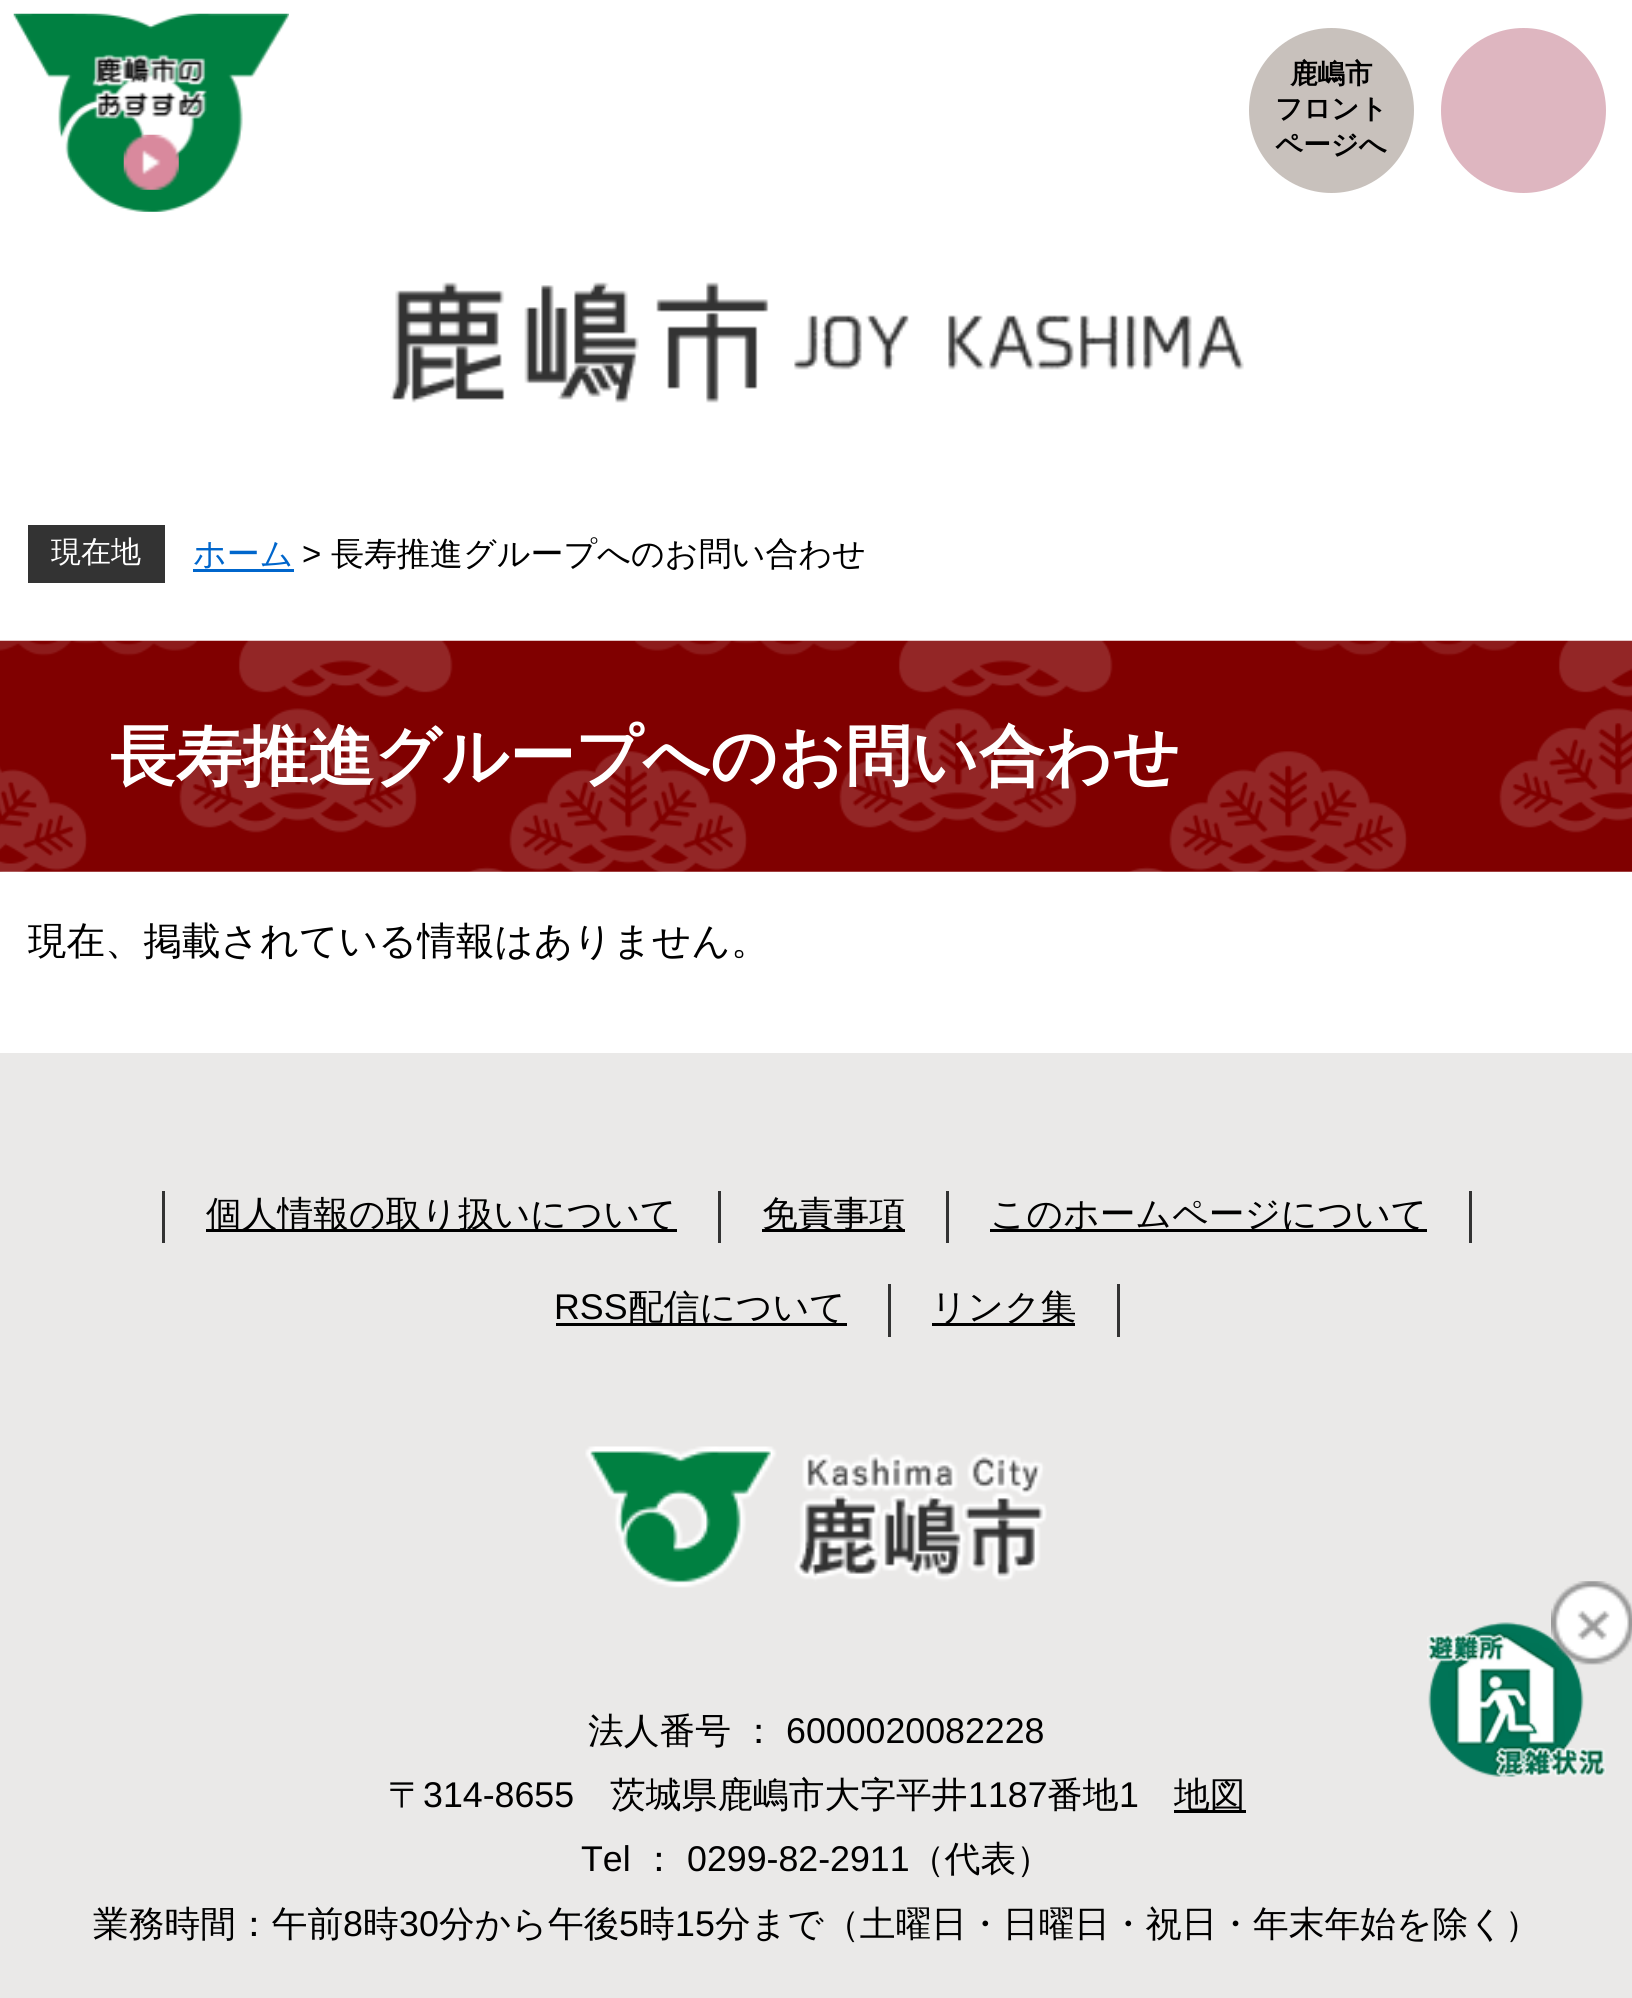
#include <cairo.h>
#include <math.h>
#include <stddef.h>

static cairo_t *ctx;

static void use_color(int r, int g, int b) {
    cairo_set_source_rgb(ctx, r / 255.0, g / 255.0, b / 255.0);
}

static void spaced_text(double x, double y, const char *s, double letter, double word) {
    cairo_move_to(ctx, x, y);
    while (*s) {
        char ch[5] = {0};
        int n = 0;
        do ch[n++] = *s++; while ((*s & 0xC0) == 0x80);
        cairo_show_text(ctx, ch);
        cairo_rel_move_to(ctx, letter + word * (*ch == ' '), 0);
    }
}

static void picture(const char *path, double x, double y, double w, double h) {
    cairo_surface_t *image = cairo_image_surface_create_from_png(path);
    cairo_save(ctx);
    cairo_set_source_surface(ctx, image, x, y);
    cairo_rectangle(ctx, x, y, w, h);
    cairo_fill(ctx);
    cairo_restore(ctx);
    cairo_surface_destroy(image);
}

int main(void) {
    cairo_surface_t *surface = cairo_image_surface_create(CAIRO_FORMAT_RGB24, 1632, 1998);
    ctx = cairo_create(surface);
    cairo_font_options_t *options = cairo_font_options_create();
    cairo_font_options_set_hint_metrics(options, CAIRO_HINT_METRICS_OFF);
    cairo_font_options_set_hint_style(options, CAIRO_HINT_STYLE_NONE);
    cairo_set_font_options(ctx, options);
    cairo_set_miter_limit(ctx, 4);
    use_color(255, 255, 255);
    cairo_paint(ctx);
    use_color(200, 193, 188);
    cairo_arc(ctx, 1331.5, 110.5, 82.5, 0, 2 * M_PI);
    cairo_fill(ctx);
    cairo_select_font_face(ctx, "WenQuanYi Zen Hei", CAIRO_FONT_SLANT_NORMAL, CAIRO_FONT_WEIGHT_BOLD);
    cairo_set_font_size(ctx, 27.5);
    use_color(0, 0, 0);
    cairo_move_to(ctx, 1290, 83);
    cairo_show_text(ctx, "鹿嶋市");
    cairo_move_to(ctx, 1275, 118);
    cairo_show_text(ctx, "フロント");
    cairo_move_to(ctx, 1275, 154);
    cairo_show_text(ctx, "ページへ");
    picture("img1.png", 390, 282, 854, 121);
    use_color(222, 182, 192);
    cairo_arc(ctx, 1523.5, 110.5, 82.5, 0, 2 * M_PI);
    cairo_fill(ctx);
    use_color(51, 51, 51);
    cairo_rectangle(ctx, 28, 525, 137, 58);
    cairo_fill(ctx);
    cairo_select_font_face(ctx, "WenQuanYi Zen Hei Medium", CAIRO_FONT_SLANT_NORMAL, CAIRO_FONT_WEIGHT_NORMAL);
    cairo_set_font_size(ctx, 30);
    use_color(255, 255, 255);
    cairo_move_to(ctx, 51, 562);
    cairo_show_text(ctx, "現在地");
    cairo_set_font_size(ctx, 33);
    use_color(0, 102, 204);
    cairo_move_to(ctx, 193, 565);
    cairo_show_text(ctx, "ホーム");
    cairo_rectangle(ctx, 193, 569, 101, 3);
    cairo_fill(ctx);
    cairo_select_font_face(ctx, "Liberation Sans", CAIRO_FONT_SLANT_NORMAL, CAIRO_FONT_WEIGHT_NORMAL);
    use_color(0, 0, 0);
    cairo_move_to(ctx, 302, 565);
    cairo_show_text(ctx, ">");
    cairo_select_font_face(ctx, "WenQuanYi Zen Hei Medium", CAIRO_FONT_SLANT_NORMAL, CAIRO_FONT_WEIGHT_NORMAL);
    cairo_move_to(ctx, 331, 565);
    cairo_show_text(ctx, "長寿推進グループへのお問い合わせ");
    picture("img2.png", 0, 640, 1632, 232);
    cairo_select_font_face(ctx, "WenQuanYi Zen Hei", CAIRO_FONT_SLANT_NORMAL, CAIRO_FONT_WEIGHT_BOLD);
    cairo_set_font_size(ctx, 66);
    use_color(255, 255, 255);
    cairo_move_to(ctx, 110, 779);
    cairo_show_text(ctx, "長寿推進グループへのお問い合わせ");
    cairo_save(ctx);
    cairo_rectangle(ctx, 28, 872, 1578, 181);
    cairo_clip(ctx);
    cairo_select_font_face(ctx, "WenQuanYi Zen Hei Medium", CAIRO_FONT_SLANT_NORMAL, CAIRO_FONT_WEIGHT_NORMAL);
    cairo_set_font_size(ctx, 38.5);
    use_color(0, 0, 0);
    cairo_move_to(ctx, 28, 954);
    cairo_show_text(ctx, "現在、掲載されている情報はありません。");
    cairo_restore(ctx);
    use_color(234, 233, 232);
    cairo_rectangle(ctx, 0, 1053, 1632, 945);
    cairo_fill(ctx);
    picture("img3.png", 13, 13, 276, 199);
    picture("img4.png", 123, 134, 56, 56);
    use_color(51, 51, 51);
    cairo_rectangle(ctx, 718, 1191, 3, 52);
    cairo_fill(ctx);
    cairo_rectangle(ctx, 162, 1191, 3, 52);
    cairo_fill(ctx);
    use_color(0, 0, 0);
    cairo_rectangle(ctx, 206, 1229, 471, 3);
    cairo_fill(ctx);
    cairo_select_font_face(ctx, "WenQuanYi Zen Hei Medium", CAIRO_FONT_SLANT_NORMAL, CAIRO_FONT_WEIGHT_NORMAL);
    cairo_set_font_size(ctx, 35.75);
    cairo_move_to(ctx, 206, 1226);
    cairo_show_text(ctx, "個人情報の取り扱いについて");
    use_color(51, 51, 51);
    cairo_rectangle(ctx, 946, 1191, 3, 52);
    cairo_fill(ctx);
    use_color(0, 0, 0);
    cairo_rectangle(ctx, 762, 1229, 143, 3);
    cairo_fill(ctx);
    cairo_move_to(ctx, 762, 1226);
    cairo_show_text(ctx, "免責事項");
    use_color(51, 51, 51);
    cairo_rectangle(ctx, 1469, 1191, 3, 52);
    cairo_fill(ctx);
    use_color(0, 0, 0);
    cairo_rectangle(ctx, 990, 1229, 437, 3);
    cairo_fill(ctx);
    cairo_move_to(ctx, 990, 1226);
    cairo_show_text(ctx, "このホームページについて");
    use_color(51, 51, 51);
    cairo_rectangle(ctx, 888, 1284, 3, 53);
    cairo_fill(ctx);
    cairo_select_font_face(ctx, "Liberation Sans", CAIRO_FONT_SLANT_NORMAL, CAIRO_FONT_WEIGHT_NORMAL);
    use_color(0, 0, 0);
    cairo_move_to(ctx, 554, 1319);
    cairo_show_text(ctx, "RSS");
    cairo_rectangle(ctx, 556, 1323, 291, 3);
    cairo_fill(ctx);
    cairo_select_font_face(ctx, "WenQuanYi Zen Hei Medium", CAIRO_FONT_SLANT_NORMAL, CAIRO_FONT_WEIGHT_NORMAL);
    cairo_move_to(ctx, 628, 1319);
    cairo_show_text(ctx, "配信について");
    use_color(51, 51, 51);
    cairo_rectangle(ctx, 1117, 1284, 3, 53);
    cairo_fill(ctx);
    use_color(0, 0, 0);
    cairo_rectangle(ctx, 932, 1323, 143, 3);
    cairo_fill(ctx);
    cairo_move_to(ctx, 931, 1319);
    cairo_show_text(ctx, "リンク集");
    picture("img5.png", 585, 1446, 462, 142);
    spaced_text(588, 1743, "法人番号 ：", 0, -1);
    cairo_select_font_face(ctx, "Liberation Sans", CAIRO_FONT_SLANT_NORMAL, CAIRO_FONT_WEIGHT_NORMAL);
    cairo_move_to(ctx, 786, 1743);
    cairo_show_text(ctx, "6000020082228");
    cairo_select_font_face(ctx, "WenQuanYi Zen Hei Medium", CAIRO_FONT_SLANT_NORMAL, CAIRO_FONT_WEIGHT_NORMAL);
    cairo_move_to(ctx, 388, 1807);
    cairo_show_text(ctx, "〒");
    cairo_select_font_face(ctx, "Liberation Sans", CAIRO_FONT_SLANT_NORMAL, CAIRO_FONT_WEIGHT_NORMAL);
    cairo_move_to(ctx, 423, 1807);
    cairo_show_text(ctx, "314-8655");
    cairo_select_font_face(ctx, "WenQuanYi Zen Hei Medium", CAIRO_FONT_SLANT_NORMAL, CAIRO_FONT_WEIGHT_NORMAL);
    cairo_move_to(ctx, 610, 1807);
    cairo_show_text(ctx, "茨城県鹿嶋市大字平井");
    cairo_select_font_face(ctx, "Liberation Sans", CAIRO_FONT_SLANT_NORMAL, CAIRO_FONT_WEIGHT_NORMAL);
    cairo_move_to(ctx, 968, 1807);
    cairo_show_text(ctx, "1187");
    cairo_select_font_face(ctx, "WenQuanYi Zen Hei Medium", CAIRO_FONT_SLANT_NORMAL, CAIRO_FONT_WEIGHT_NORMAL);
    cairo_move_to(ctx, 1047, 1807);
    cairo_show_text(ctx, "番地");
    cairo_select_font_face(ctx, "Liberation Sans", CAIRO_FONT_SLANT_NORMAL, CAIRO_FONT_WEIGHT_NORMAL);
    cairo_move_to(ctx, 1119, 1807);
    cairo_show_text(ctx, "1");
    cairo_rectangle(ctx, 1174, 1810, 72, 3);
    cairo_fill(ctx);
    cairo_select_font_face(ctx, "WenQuanYi Zen Hei Medium", CAIRO_FONT_SLANT_NORMAL, CAIRO_FONT_WEIGHT_NORMAL);
    cairo_move_to(ctx, 1174, 1807);
    cairo_show_text(ctx, "地図");
    cairo_select_font_face(ctx, "Liberation Sans", CAIRO_FONT_SLANT_NORMAL, CAIRO_FONT_WEIGHT_NORMAL);
    cairo_move_to(ctx, 581, 1871);
    cairo_show_text(ctx, "Tel");
    cairo_select_font_face(ctx, "WenQuanYi Zen Hei Medium", CAIRO_FONT_SLANT_NORMAL, CAIRO_FONT_WEIGHT_NORMAL);
    cairo_move_to(ctx, 641, 1871);
    cairo_show_text(ctx, "：");
    cairo_select_font_face(ctx, "Liberation Sans", CAIRO_FONT_SLANT_NORMAL, CAIRO_FONT_WEIGHT_NORMAL);
    cairo_move_to(ctx, 687, 1871);
    cairo_show_text(ctx, "0299-82-2911");
    cairo_select_font_face(ctx, "WenQuanYi Zen Hei Medium", CAIRO_FONT_SLANT_NORMAL, CAIRO_FONT_WEIGHT_NORMAL);
    cairo_move_to(ctx, 909, 1871);
    cairo_show_text(ctx, "（代表）");
    cairo_move_to(ctx, 93, 1936);
    cairo_show_text(ctx, "業務時間：午前");
    cairo_select_font_face(ctx, "Liberation Sans", CAIRO_FONT_SLANT_NORMAL, CAIRO_FONT_WEIGHT_NORMAL);
    cairo_move_to(ctx, 343, 1936);
    cairo_show_text(ctx, "8");
    cairo_select_font_face(ctx, "WenQuanYi Zen Hei Medium", CAIRO_FONT_SLANT_NORMAL, CAIRO_FONT_WEIGHT_NORMAL);
    cairo_move_to(ctx, 363, 1936);
    cairo_show_text(ctx, "時");
    cairo_select_font_face(ctx, "Liberation Sans", CAIRO_FONT_SLANT_NORMAL, CAIRO_FONT_WEIGHT_NORMAL);
    cairo_move_to(ctx, 399, 1936);
    cairo_show_text(ctx, "30");
    cairo_select_font_face(ctx, "WenQuanYi Zen Hei Medium", CAIRO_FONT_SLANT_NORMAL, CAIRO_FONT_WEIGHT_NORMAL);
    cairo_move_to(ctx, 439, 1936);
    cairo_show_text(ctx, "分から午後");
    cairo_select_font_face(ctx, "Liberation Sans", CAIRO_FONT_SLANT_NORMAL, CAIRO_FONT_WEIGHT_NORMAL);
    cairo_move_to(ctx, 619, 1936);
    cairo_show_text(ctx, "5");
    cairo_select_font_face(ctx, "WenQuanYi Zen Hei Medium", CAIRO_FONT_SLANT_NORMAL, CAIRO_FONT_WEIGHT_NORMAL);
    cairo_move_to(ctx, 639, 1936);
    cairo_show_text(ctx, "時");
    cairo_select_font_face(ctx, "Liberation Sans", CAIRO_FONT_SLANT_NORMAL, CAIRO_FONT_WEIGHT_NORMAL);
    cairo_move_to(ctx, 675, 1936);
    cairo_show_text(ctx, "15");
    cairo_select_font_face(ctx, "WenQuanYi Zen Hei Medium", CAIRO_FONT_SLANT_NORMAL, CAIRO_FONT_WEIGHT_NORMAL);
    cairo_move_to(ctx, 715, 1936);
    cairo_show_text(ctx, "分まで（土曜日・日曜日・祝日・年末年始を除く）");
    picture("img7.png", 1427, 1622, 179, 155);
    picture("img6.png", 1551, 1581, 81, 84);
    cairo_surface_write_to_png(surface, "result.png");
    cairo_font_options_destroy(options);
    cairo_destroy(ctx);
    cairo_surface_destroy(surface);
    return 0;
}
